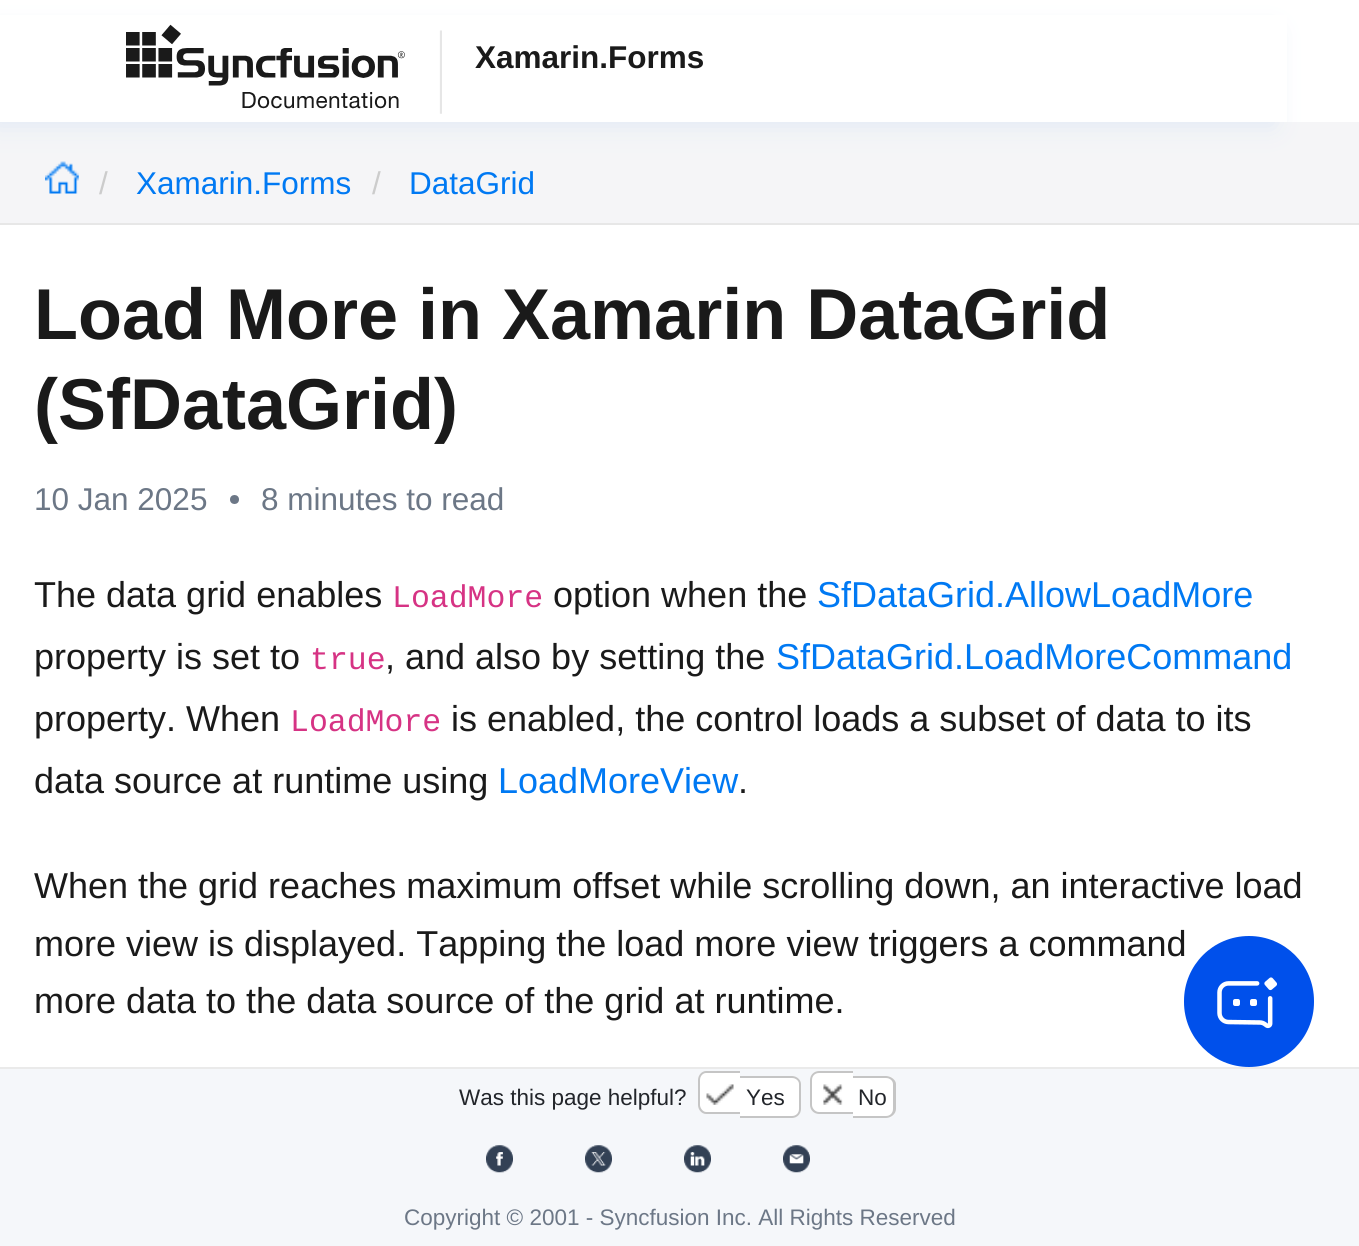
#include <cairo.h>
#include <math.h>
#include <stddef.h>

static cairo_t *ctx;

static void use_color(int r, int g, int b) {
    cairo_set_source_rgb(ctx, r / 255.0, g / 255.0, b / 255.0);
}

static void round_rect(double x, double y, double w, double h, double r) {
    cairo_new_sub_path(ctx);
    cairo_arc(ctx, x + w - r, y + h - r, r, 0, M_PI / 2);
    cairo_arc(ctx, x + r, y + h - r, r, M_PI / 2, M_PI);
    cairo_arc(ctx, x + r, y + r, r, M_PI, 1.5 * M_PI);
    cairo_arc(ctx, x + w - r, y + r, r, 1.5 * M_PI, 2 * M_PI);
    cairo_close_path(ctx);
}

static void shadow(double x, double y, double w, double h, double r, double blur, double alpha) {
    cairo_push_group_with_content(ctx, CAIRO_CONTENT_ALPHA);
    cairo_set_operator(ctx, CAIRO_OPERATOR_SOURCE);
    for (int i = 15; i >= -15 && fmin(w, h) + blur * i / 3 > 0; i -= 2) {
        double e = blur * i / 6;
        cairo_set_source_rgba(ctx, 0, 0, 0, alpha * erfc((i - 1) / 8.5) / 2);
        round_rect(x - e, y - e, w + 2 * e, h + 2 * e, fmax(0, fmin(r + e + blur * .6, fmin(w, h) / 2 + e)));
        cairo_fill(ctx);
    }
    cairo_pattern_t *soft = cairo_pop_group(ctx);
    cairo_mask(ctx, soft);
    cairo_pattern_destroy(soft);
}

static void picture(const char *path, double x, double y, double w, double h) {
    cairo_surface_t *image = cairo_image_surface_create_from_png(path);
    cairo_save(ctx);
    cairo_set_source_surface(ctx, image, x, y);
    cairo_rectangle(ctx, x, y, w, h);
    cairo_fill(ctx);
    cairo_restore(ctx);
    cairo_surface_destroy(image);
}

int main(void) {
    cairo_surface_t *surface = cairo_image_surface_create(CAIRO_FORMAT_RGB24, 1359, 1246);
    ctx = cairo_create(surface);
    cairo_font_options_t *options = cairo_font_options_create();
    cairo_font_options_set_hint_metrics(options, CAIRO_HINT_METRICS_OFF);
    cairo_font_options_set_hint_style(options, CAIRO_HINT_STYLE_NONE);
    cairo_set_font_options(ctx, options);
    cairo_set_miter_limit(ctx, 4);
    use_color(255, 255, 255);
    cairo_paint(ctx);
    use_color(245, 245, 247);
    cairo_rectangle(ctx, 0, 122, 1359, 101);
    cairo_fill(ctx);
    picture("img2.png", 45, 161, 34, 33);
    use_color(226, 234, 245);
    shadow(-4, 32, 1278, 94, 0, 12.5, 1);
    use_color(255, 255, 255);
    cairo_rectangle(ctx, 0, 15, 1287, 107);
    cairo_fill(ctx);
    picture("img1.png", 126, 24, 316, 90);
    cairo_select_font_face(ctx, "Liberation Sans", CAIRO_FONT_SLANT_NORMAL, CAIRO_FONT_WEIGHT_BOLD);
    cairo_set_font_size(ctx, 31.5);
    use_color(26, 26, 26);
    cairo_move_to(ctx, 475, 68);
    cairo_show_text(ctx, "Xamarin.Forms");
    use_color(231, 231, 231);
    cairo_rectangle(ctx, 0, 223, 1359, 2);
    cairo_fill(ctx);
    cairo_select_font_face(ctx, "Liberation Sans", CAIRO_FONT_SLANT_NORMAL, CAIRO_FONT_WEIGHT_NORMAL);
    use_color(204, 204, 204);
    cairo_move_to(ctx, 99, 194);
    cairo_show_text(ctx, "/");
    use_color(0, 121, 243);
    cairo_move_to(ctx, 136, 194);
    cairo_show_text(ctx, "Xamarin.Forms");
    use_color(204, 204, 204);
    cairo_move_to(ctx, 372, 194);
    cairo_show_text(ctx, "/");
    use_color(0, 121, 243);
    cairo_move_to(ctx, 409, 194);
    cairo_show_text(ctx, "DataGrid");
    cairo_select_font_face(ctx, "Liberation Sans", CAIRO_FONT_SLANT_NORMAL, CAIRO_FONT_WEIGHT_BOLD);
    cairo_set_font_size(ctx, 72);
    use_color(26, 26, 26);
    cairo_move_to(ctx, 34, 339);
    cairo_show_text(ctx, "Load More in Xamarin DataGrid");
    cairo_move_to(ctx, 34, 429);
    cairo_show_text(ctx, "(SfDataGrid)");
    cairo_select_font_face(ctx, "Liberation Sans", CAIRO_FONT_SLANT_NORMAL, CAIRO_FONT_WEIGHT_NORMAL);
    cairo_set_font_size(ctx, 31.5);
    use_color(108, 119, 134);
    cairo_move_to(ctx, 34, 510);
    cairo_show_text(ctx, "10 Jan 2025");
    cairo_new_path(ctx);
    cairo_arc(ctx, 234.5, 499.5, 4.5, 0, 2 * M_PI);
    cairo_fill(ctx);
    cairo_move_to(ctx, 261, 510);
    cairo_show_text(ctx, "8 minutes to read");
    cairo_set_font_size(ctx, 36);
    use_color(26, 26, 26);
    cairo_move_to(ctx, 34, 607);
    cairo_show_text(ctx, "The data grid enables");
    cairo_select_font_face(ctx, "Liberation Mono", CAIRO_FONT_SLANT_NORMAL, CAIRO_FONT_WEIGHT_NORMAL);
    cairo_set_font_size(ctx, 31.5);
    use_color(214, 51, 132);
    cairo_move_to(ctx, 392, 607);
    cairo_show_text(ctx, "LoadMore");
    cairo_select_font_face(ctx, "Liberation Sans", CAIRO_FONT_SLANT_NORMAL, CAIRO_FONT_WEIGHT_NORMAL);
    cairo_set_font_size(ctx, 36);
    use_color(26, 26, 26);
    cairo_move_to(ctx, 553, 607);
    cairo_show_text(ctx, "option when the");
    use_color(0, 121, 243);
    cairo_move_to(ctx, 817, 607);
    cairo_show_text(ctx, "SfDataGrid.AllowLoadMore");
    use_color(26, 26, 26);
    cairo_move_to(ctx, 34, 669);
    cairo_show_text(ctx, "property is set to");
    cairo_select_font_face(ctx, "Liberation Mono", CAIRO_FONT_SLANT_NORMAL, CAIRO_FONT_WEIGHT_NORMAL);
    cairo_set_font_size(ctx, 31.5);
    use_color(214, 51, 132);
    cairo_move_to(ctx, 310, 669);
    cairo_show_text(ctx, "true");
    cairo_select_font_face(ctx, "Liberation Sans", CAIRO_FONT_SLANT_NORMAL, CAIRO_FONT_WEIGHT_NORMAL);
    cairo_set_font_size(ctx, 36);
    use_color(26, 26, 26);
    cairo_move_to(ctx, 385, 669);
    cairo_show_text(ctx, ", and also by setting the");
    use_color(0, 121, 243);
    cairo_move_to(ctx, 776, 669);
    cairo_show_text(ctx, "SfDataGrid.LoadMoreCommand");
    use_color(26, 26, 26);
    cairo_move_to(ctx, 34, 731);
    cairo_show_text(ctx, "property. When");
    cairo_select_font_face(ctx, "Liberation Mono", CAIRO_FONT_SLANT_NORMAL, CAIRO_FONT_WEIGHT_NORMAL);
    cairo_set_font_size(ctx, 31.5);
    use_color(214, 51, 132);
    cairo_move_to(ctx, 290, 731);
    cairo_show_text(ctx, "LoadMore");
    cairo_select_font_face(ctx, "Liberation Sans", CAIRO_FONT_SLANT_NORMAL, CAIRO_FONT_WEIGHT_NORMAL);
    cairo_set_font_size(ctx, 36);
    use_color(26, 26, 26);
    cairo_move_to(ctx, 451, 731);
    cairo_show_text(ctx, "is enabled, the control loads a subset of data to its");
    cairo_move_to(ctx, 34, 793);
    cairo_show_text(ctx, "data source at runtime using");
    use_color(0, 121, 243);
    cairo_move_to(ctx, 498, 793);
    cairo_show_text(ctx, "LoadMoreView");
    use_color(26, 26, 26);
    cairo_move_to(ctx, 738, 793);
    cairo_show_text(ctx, ".");
    cairo_move_to(ctx, 34, 898);
    cairo_show_text(ctx, "When the grid reaches maximum offset while scrolling down, an interactive load");
    cairo_move_to(ctx, 34, 956);
    cairo_show_text(ctx, "more view is displayed. Tapping the load more view triggers a command");
    cairo_move_to(ctx, 34, 1013);
    cairo_show_text(ctx, "more data to the data source of the grid at runtime.");
    use_color(0, 80, 235);
    round_rect(1184, 936, 130, 131, 65);
    cairo_fill(ctx);
    picture("img3.png", 1217, 977, 60, 52);
    use_color(245, 247, 250);
    cairo_rectangle(ctx, 0, 1069, 1359, 177);
    cairo_fill(ctx);
    use_color(234, 234, 234);
    cairo_rectangle(ctx, 0, 1067, 1359, 2);
    cairo_fill(ctx);
    cairo_set_font_size(ctx, 22.5);
    use_color(34, 37, 42);
    cairo_move_to(ctx, 459, 1105);
    cairo_show_text(ctx, "Was this page helpful?");
    use_color(255, 255, 255);
    cairo_new_path(ctx);
    cairo_move_to(ctx, 707, 1071);
    cairo_line_to(ctx, 740, 1071);
    cairo_line_to(ctx, 740, 1114);
    cairo_line_to(ctx, 707, 1114);
    cairo_curve_to(ctx, 702, 1114, 698, 1110, 698, 1105);
    cairo_line_to(ctx, 698, 1080);
    cairo_curve_to(ctx, 698, 1075, 702, 1071, 707, 1071);
    cairo_close_path(ctx);
    cairo_fill(ctx);
    use_color(197, 197, 197);
    cairo_set_fill_rule(ctx, CAIRO_FILL_RULE_EVEN_ODD);
    cairo_new_path(ctx);
    cairo_move_to(ctx, 706, 1071);
    cairo_line_to(ctx, 740, 1071);
    cairo_line_to(ctx, 740, 1114);
    cairo_line_to(ctx, 706, 1114);
    cairo_curve_to(ctx, 702, 1114, 698, 1110, 698, 1105);
    cairo_line_to(ctx, 698, 1080);
    cairo_curve_to(ctx, 698, 1075, 702, 1071, 706, 1071);
    cairo_close_path(ctx);
    cairo_move_to(ctx, 706, 1073);
    cairo_line_to(ctx, 740, 1073);
    cairo_line_to(ctx, 740, 1112);
    cairo_line_to(ctx, 706, 1112);
    cairo_curve_to(ctx, 703, 1112, 700, 1108, 700, 1105);
    cairo_line_to(ctx, 700, 1080);
    cairo_curve_to(ctx, 700, 1076, 703, 1073, 706, 1073);
    cairo_close_path(ctx);
    cairo_fill(ctx);
    use_color(255, 255, 255);
    cairo_new_path(ctx);
    cairo_move_to(ctx, 740, 1076);
    cairo_line_to(ctx, 792, 1076);
    cairo_curve_to(ctx, 797, 1076, 801, 1080, 801, 1085);
    cairo_line_to(ctx, 801, 1109);
    cairo_curve_to(ctx, 801, 1114, 797, 1118, 792, 1118);
    cairo_line_to(ctx, 740, 1118);
    cairo_close_path(ctx);
    cairo_fill(ctx);
    use_color(197, 197, 197);
    cairo_new_path(ctx);
    cairo_move_to(ctx, 740, 1076);
    cairo_line_to(ctx, 792, 1076);
    cairo_curve_to(ctx, 797, 1076, 801, 1080, 801, 1084);
    cairo_line_to(ctx, 801, 1109);
    cairo_curve_to(ctx, 801, 1114, 797, 1118, 792, 1118);
    cairo_line_to(ctx, 740, 1118);
    cairo_close_path(ctx);
    cairo_move_to(ctx, 740, 1078);
    cairo_line_to(ctx, 792, 1078);
    cairo_curve_to(ctx, 796, 1078, 799, 1081, 799, 1084);
    cairo_line_to(ctx, 799, 1109);
    cairo_curve_to(ctx, 799, 1113, 796, 1116, 792, 1116);
    cairo_line_to(ctx, 740, 1116);
    cairo_close_path(ctx);
    cairo_fill(ctx);
    picture("img4.png", 706, 1084, 28, 21);
    use_color(34, 37, 42);
    cairo_move_to(ctx, 746, 1105);
    cairo_show_text(ctx, "Yes");
    use_color(255, 255, 255);
    cairo_new_path(ctx);
    cairo_move_to(ctx, 819, 1071);
    cairo_line_to(ctx, 853, 1071);
    cairo_line_to(ctx, 853, 1114);
    cairo_line_to(ctx, 819, 1114);
    cairo_curve_to(ctx, 814, 1114, 810, 1110, 810, 1105);
    cairo_line_to(ctx, 810, 1080);
    cairo_curve_to(ctx, 810, 1075, 814, 1071, 819, 1071);
    cairo_close_path(ctx);
    cairo_fill(ctx);
    use_color(197, 197, 197);
    cairo_new_path(ctx);
    cairo_move_to(ctx, 819, 1071);
    cairo_line_to(ctx, 853, 1071);
    cairo_line_to(ctx, 853, 1114);
    cairo_line_to(ctx, 819, 1114);
    cairo_curve_to(ctx, 814, 1114, 810, 1110, 810, 1105);
    cairo_line_to(ctx, 810, 1080);
    cairo_curve_to(ctx, 810, 1075, 814, 1071, 819, 1071);
    cairo_close_path(ctx);
    cairo_move_to(ctx, 819, 1073);
    cairo_line_to(ctx, 853, 1073);
    cairo_line_to(ctx, 853, 1112);
    cairo_line_to(ctx, 819, 1112);
    cairo_curve_to(ctx, 815, 1112, 812, 1108, 812, 1105);
    cairo_line_to(ctx, 812, 1080);
    cairo_curve_to(ctx, 812, 1076, 815, 1073, 819, 1073);
    cairo_close_path(ctx);
    cairo_fill(ctx);
    use_color(255, 255, 255);
    cairo_new_path(ctx);
    cairo_move_to(ctx, 853, 1076);
    cairo_line_to(ctx, 887, 1076);
    cairo_curve_to(ctx, 892, 1076, 896, 1080, 896, 1085);
    cairo_line_to(ctx, 896, 1109);
    cairo_curve_to(ctx, 896, 1114, 892, 1118, 887, 1118);
    cairo_line_to(ctx, 853, 1118);
    cairo_close_path(ctx);
    cairo_fill(ctx);
    use_color(197, 197, 197);
    cairo_new_path(ctx);
    cairo_move_to(ctx, 853, 1076);
    cairo_line_to(ctx, 886, 1076);
    cairo_curve_to(ctx, 891, 1076, 896, 1080, 896, 1084);
    cairo_line_to(ctx, 896, 1109);
    cairo_curve_to(ctx, 896, 1114, 891, 1118, 886, 1118);
    cairo_line_to(ctx, 853, 1118);
    cairo_close_path(ctx);
    cairo_move_to(ctx, 853, 1078);
    cairo_line_to(ctx, 886, 1078);
    cairo_curve_to(ctx, 890, 1078, 893, 1081, 893, 1084);
    cairo_line_to(ctx, 893, 1109);
    cairo_curve_to(ctx, 893, 1113, 890, 1116, 886, 1116);
    cairo_line_to(ctx, 853, 1116);
    cairo_close_path(ctx);
    cairo_fill(ctx);
    picture("img5.png", 823, 1084, 20, 21);
    use_color(34, 37, 42);
    cairo_move_to(ctx, 858, 1105);
    cairo_show_text(ctx, "No");
    picture("img6.png", 486, 1145, 27, 28);
    picture("img7.png", 585, 1145, 27, 28);
    picture("img8.png", 684, 1145, 27, 28);
    picture("img9.png", 783, 1145, 27, 28);
    use_color(108, 119, 134);
    cairo_move_to(ctx, 404, 1225);
    cairo_show_text(ctx, "Copyright © 2001 - Syncfusion Inc. All Rights Reserved");
    cairo_surface_write_to_png(surface, "result.png");
    cairo_font_options_destroy(options);
    cairo_destroy(ctx);
    cairo_surface_destroy(surface);
    return 0;
}
